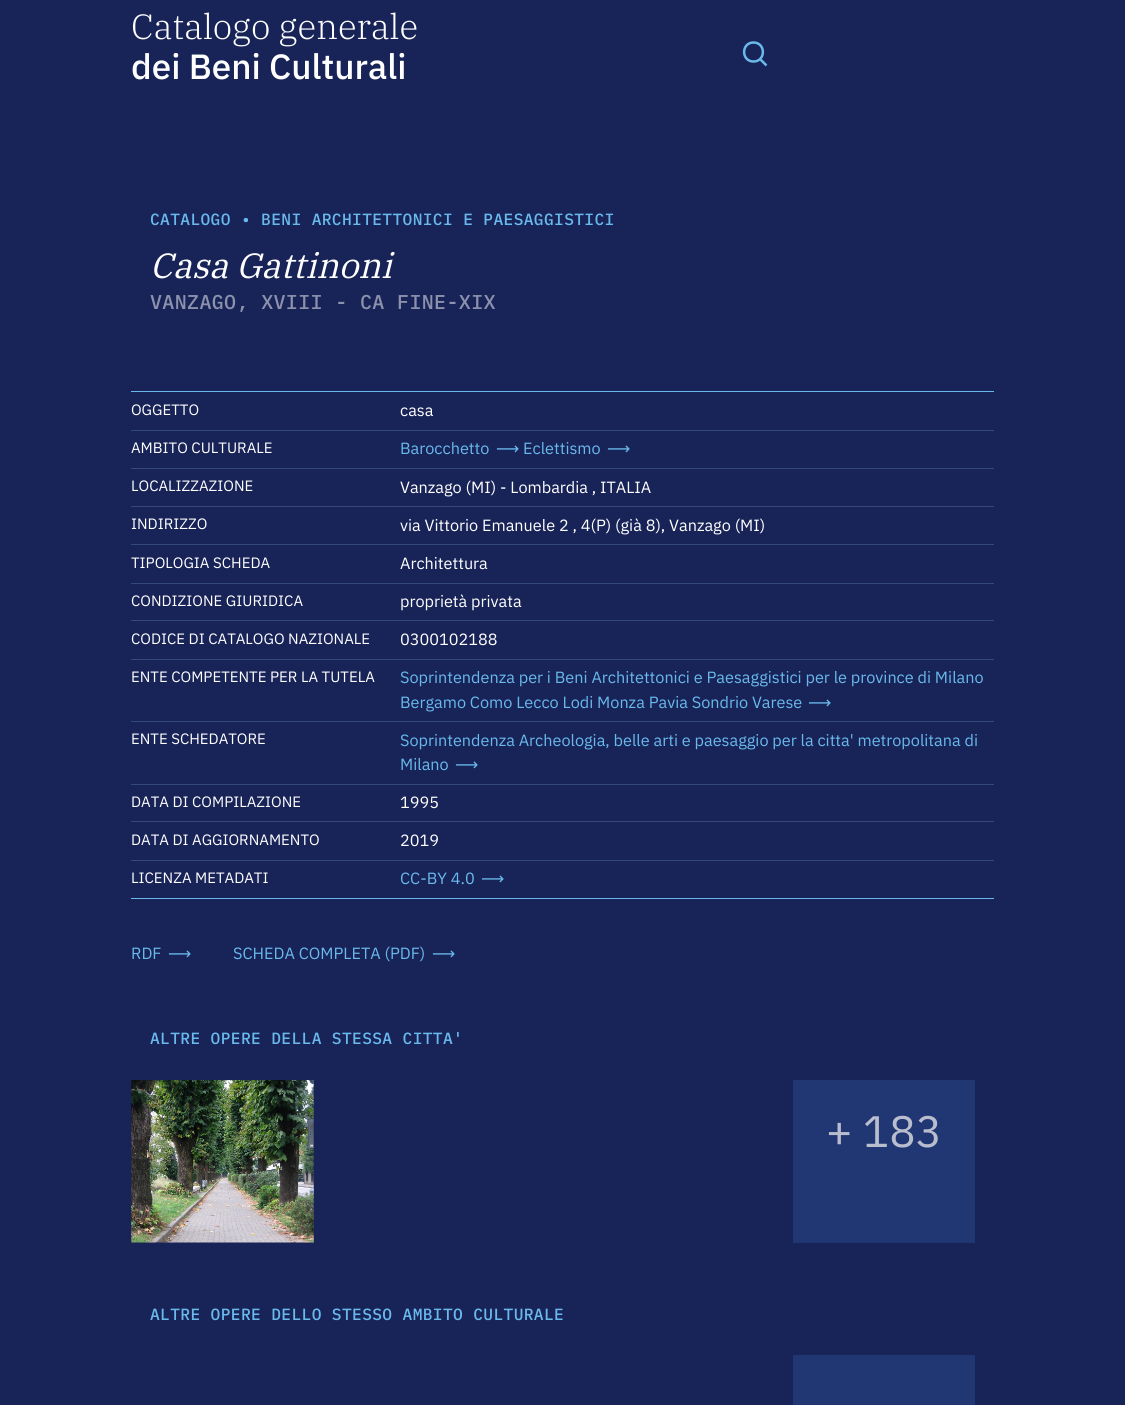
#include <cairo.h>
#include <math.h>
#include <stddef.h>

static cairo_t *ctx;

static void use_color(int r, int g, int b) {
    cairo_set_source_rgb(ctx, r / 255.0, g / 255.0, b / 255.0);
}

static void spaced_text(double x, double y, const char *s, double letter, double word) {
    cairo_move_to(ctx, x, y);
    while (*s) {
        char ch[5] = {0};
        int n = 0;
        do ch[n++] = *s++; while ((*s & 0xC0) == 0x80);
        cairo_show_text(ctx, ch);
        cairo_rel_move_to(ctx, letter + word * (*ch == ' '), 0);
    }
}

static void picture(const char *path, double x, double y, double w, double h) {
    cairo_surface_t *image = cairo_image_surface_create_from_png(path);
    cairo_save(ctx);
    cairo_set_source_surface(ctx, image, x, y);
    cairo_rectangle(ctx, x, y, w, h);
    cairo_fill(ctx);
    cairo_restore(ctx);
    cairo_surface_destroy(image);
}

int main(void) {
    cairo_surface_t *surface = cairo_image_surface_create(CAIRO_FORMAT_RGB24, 1125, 1405);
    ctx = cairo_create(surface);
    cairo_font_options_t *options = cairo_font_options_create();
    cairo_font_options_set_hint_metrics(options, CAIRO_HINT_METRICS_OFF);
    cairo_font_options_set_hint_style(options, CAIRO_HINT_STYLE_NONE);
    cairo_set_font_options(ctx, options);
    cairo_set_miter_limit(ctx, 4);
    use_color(24, 35, 88);
    cairo_paint(ctx);
    cairo_select_font_face(ctx, "IBM Plex Serif Light", CAIRO_FONT_SLANT_NORMAL, CAIRO_FONT_WEIGHT_NORMAL);
    cairo_set_font_size(ctx, 35);
    use_color(255, 255, 255);
    cairo_move_to(ctx, 131, 39);
    cairo_show_text(ctx, "Catalogo generale");
    cairo_select_font_face(ctx, "IBM Plex Sans Medium", CAIRO_FONT_SLANT_NORMAL, CAIRO_FONT_WEIGHT_NORMAL);
    cairo_move_to(ctx, 131, 79);
    cairo_show_text(ctx, "dei Beni Culturali");
    cairo_new_path(ctx);
    cairo_move_to(ctx, 753.5, 61.5);
    cairo_curve_to(ctx, 766, 61.5, 766, 42.5, 753.5, 42.5);
    cairo_curve_to(ctx, 741, 42.5, 741, 61.5, 753.5, 61.5);
    cairo_close_path(ctx);
    cairo_move_to(ctx, 760.5, 59.5);
    cairo_line_to(ctx, 766.5, 65.5);
    use_color(105, 185, 236);
    cairo_set_line_width(ctx, 2.5);
    cairo_stroke(ctx);
    cairo_select_font_face(ctx, "IBM Plex Mono Medium", CAIRO_FONT_SLANT_NORMAL, CAIRO_FONT_WEIGHT_NORMAL);
    cairo_set_font_size(ctx, 16.25);
    spaced_text(150, 225, "CATALOGO • BENI ARCHITETTONICI E PAESAGGISTICI", 0.35, 0);
    cairo_select_font_face(ctx, "IBM Plex Serif", CAIRO_FONT_SLANT_ITALIC, CAIRO_FONT_WEIGHT_NORMAL);
    cairo_set_font_size(ctx, 35);
    use_color(255, 255, 255);
    cairo_move_to(ctx, 150, 278);
    cairo_show_text(ctx, "Casa Gattinoni");
    cairo_select_font_face(ctx, "IBM Plex Mono Medium", CAIRO_FONT_SLANT_NORMAL, CAIRO_FONT_WEIGHT_NORMAL);
    cairo_set_font_size(ctx, 20);
    use_color(140, 145, 172);
    spaced_text(150, 309, "VANZAGO, XVIII - CA FINE-XIX", 0.35, 0);
    use_color(105, 185, 236);
    cairo_rectangle(ctx, 131, 391, 863, 1);
    cairo_fill(ctx);
    cairo_rectangle(ctx, 131, 898, 863, 1);
    cairo_fill(ctx);
    use_color(53, 73, 121);
    cairo_rectangle(ctx, 131, 430, 863, 1);
    cairo_fill(ctx);
    cairo_select_font_face(ctx, "IBM Plex Sans", CAIRO_FONT_SLANT_NORMAL, CAIRO_FONT_WEIGHT_NORMAL);
    cairo_set_font_size(ctx, 15);
    use_color(255, 255, 255);
    cairo_move_to(ctx, 131, 415);
    cairo_show_text(ctx, "OGGETTO");
    cairo_set_font_size(ctx, 16.25);
    cairo_move_to(ctx, 400, 416);
    cairo_show_text(ctx, "casa");
    use_color(53, 73, 121);
    cairo_rectangle(ctx, 131, 468, 863, 1);
    cairo_fill(ctx);
    cairo_set_font_size(ctx, 15);
    use_color(255, 255, 255);
    cairo_move_to(ctx, 131, 453);
    cairo_show_text(ctx, "AMBITO CULTURALE");
    cairo_set_font_size(ctx, 16.25);
    use_color(105, 185, 236);
    cairo_move_to(ctx, 400, 454);
    cairo_show_text(ctx, "Barocchetto");
    cairo_select_font_face(ctx, "DejaVu Sans", CAIRO_FONT_SLANT_NORMAL, CAIRO_FONT_WEIGHT_NORMAL);
    cairo_move_to(ctx, 496, 454);
    cairo_show_text(ctx, "⟶");
    cairo_select_font_face(ctx, "IBM Plex Sans", CAIRO_FONT_SLANT_NORMAL, CAIRO_FONT_WEIGHT_NORMAL);
    cairo_move_to(ctx, 523, 454);
    cairo_show_text(ctx, "Eclettismo");
    cairo_select_font_face(ctx, "DejaVu Sans", CAIRO_FONT_SLANT_NORMAL, CAIRO_FONT_WEIGHT_NORMAL);
    cairo_move_to(ctx, 607, 454);
    cairo_show_text(ctx, "⟶");
    use_color(53, 73, 121);
    cairo_rectangle(ctx, 131, 506, 863, 1);
    cairo_fill(ctx);
    cairo_select_font_face(ctx, "IBM Plex Sans", CAIRO_FONT_SLANT_NORMAL, CAIRO_FONT_WEIGHT_NORMAL);
    cairo_set_font_size(ctx, 15);
    use_color(255, 255, 255);
    cairo_move_to(ctx, 131, 491);
    cairo_show_text(ctx, "LOCALIZZAZIONE");
    cairo_set_font_size(ctx, 16.25);
    cairo_move_to(ctx, 400, 493);
    cairo_show_text(ctx, "Vanzago (MI) - Lombardia , ITALIA");
    use_color(53, 73, 121);
    cairo_rectangle(ctx, 131, 544, 863, 1);
    cairo_fill(ctx);
    cairo_set_font_size(ctx, 15);
    use_color(255, 255, 255);
    cairo_move_to(ctx, 131, 529);
    cairo_show_text(ctx, "INDIRIZZO");
    cairo_set_font_size(ctx, 16.25);
    cairo_move_to(ctx, 400, 531);
    cairo_show_text(ctx, "via Vittorio Emanuele 2 , 4(P) (già 8), Vanzago (MI)");
    use_color(53, 73, 121);
    cairo_rectangle(ctx, 131, 583, 863, 1);
    cairo_fill(ctx);
    cairo_set_font_size(ctx, 15);
    use_color(255, 255, 255);
    cairo_move_to(ctx, 131, 568);
    cairo_show_text(ctx, "TIPOLOGIA SCHEDA");
    cairo_set_font_size(ctx, 16.25);
    cairo_move_to(ctx, 400, 569);
    cairo_show_text(ctx, "Architettura");
    use_color(53, 73, 121);
    cairo_rectangle(ctx, 131, 620, 863, 1);
    cairo_fill(ctx);
    cairo_set_font_size(ctx, 15);
    use_color(255, 255, 255);
    cairo_move_to(ctx, 131, 606);
    cairo_show_text(ctx, "CONDIZIONE GIURIDICA");
    cairo_set_font_size(ctx, 16.25);
    cairo_move_to(ctx, 400, 607);
    cairo_show_text(ctx, "proprietà privata");
    use_color(53, 73, 121);
    cairo_rectangle(ctx, 131, 659, 863, 1);
    cairo_fill(ctx);
    cairo_set_font_size(ctx, 15);
    use_color(255, 255, 255);
    cairo_move_to(ctx, 131, 644);
    cairo_show_text(ctx, "CODICE DI CATALOGO NAZIONALE");
    cairo_set_font_size(ctx, 16.25);
    cairo_move_to(ctx, 400, 645);
    cairo_show_text(ctx, "0300102188");
    use_color(53, 73, 121);
    cairo_rectangle(ctx, 131, 721, 863, 1);
    cairo_fill(ctx);
    cairo_set_font_size(ctx, 15);
    use_color(255, 255, 255);
    cairo_move_to(ctx, 131, 682);
    cairo_show_text(ctx, "ENTE COMPETENTE PER LA TUTELA");
    cairo_set_font_size(ctx, 16.25);
    use_color(105, 185, 236);
    cairo_move_to(ctx, 400, 683);
    cairo_show_text(ctx, "Soprintendenza per i Beni Architettonici e Paesaggistici per le province di Milano");
    cairo_move_to(ctx, 400, 708);
    cairo_show_text(ctx, "Bergamo Como Lecco Lodi Monza Pavia Sondrio Varese");
    cairo_select_font_face(ctx, "DejaVu Sans", CAIRO_FONT_SLANT_NORMAL, CAIRO_FONT_WEIGHT_NORMAL);
    cairo_move_to(ctx, 808, 708);
    cairo_show_text(ctx, "⟶");
    use_color(53, 73, 121);
    cairo_rectangle(ctx, 131, 784, 863, 1);
    cairo_fill(ctx);
    cairo_select_font_face(ctx, "IBM Plex Sans", CAIRO_FONT_SLANT_NORMAL, CAIRO_FONT_WEIGHT_NORMAL);
    cairo_set_font_size(ctx, 15);
    use_color(255, 255, 255);
    cairo_move_to(ctx, 131, 744);
    cairo_show_text(ctx, "ENTE SCHEDATORE");
    cairo_set_font_size(ctx, 16.25);
    use_color(105, 185, 236);
    cairo_move_to(ctx, 400, 746);
    cairo_show_text(ctx, "Soprintendenza Archeologia, belle arti e paesaggio per la citta' metropolitana di");
    cairo_move_to(ctx, 400, 770);
    cairo_show_text(ctx, "Milano");
    cairo_select_font_face(ctx, "DejaVu Sans", CAIRO_FONT_SLANT_NORMAL, CAIRO_FONT_WEIGHT_NORMAL);
    cairo_move_to(ctx, 455, 770);
    cairo_show_text(ctx, "⟶");
    use_color(53, 73, 121);
    cairo_rectangle(ctx, 131, 821, 863, 1);
    cairo_fill(ctx);
    cairo_select_font_face(ctx, "IBM Plex Sans", CAIRO_FONT_SLANT_NORMAL, CAIRO_FONT_WEIGHT_NORMAL);
    cairo_set_font_size(ctx, 15);
    use_color(255, 255, 255);
    cairo_move_to(ctx, 131, 807);
    cairo_show_text(ctx, "DATA DI COMPILAZIONE");
    cairo_set_font_size(ctx, 16.25);
    cairo_move_to(ctx, 400, 808);
    cairo_show_text(ctx, "1995");
    use_color(53, 73, 121);
    cairo_rectangle(ctx, 131, 860, 863, 1);
    cairo_fill(ctx);
    cairo_set_font_size(ctx, 15);
    use_color(255, 255, 255);
    cairo_move_to(ctx, 131, 845);
    cairo_show_text(ctx, "DATA DI AGGIORNAMENTO");
    cairo_set_font_size(ctx, 16.25);
    cairo_move_to(ctx, 400, 846);
    cairo_show_text(ctx, "2019");
    cairo_set_font_size(ctx, 15);
    cairo_move_to(ctx, 131, 883);
    cairo_show_text(ctx, "LICENZA METADATI");
    cairo_set_font_size(ctx, 16.25);
    use_color(105, 185, 236);
    cairo_move_to(ctx, 400, 884);
    cairo_show_text(ctx, "CC-BY 4.0");
    cairo_select_font_face(ctx, "DejaVu Sans", CAIRO_FONT_SLANT_NORMAL, CAIRO_FONT_WEIGHT_NORMAL);
    cairo_move_to(ctx, 481, 884);
    cairo_show_text(ctx, "⟶");
    cairo_select_font_face(ctx, "IBM Plex Sans", CAIRO_FONT_SLANT_NORMAL, CAIRO_FONT_WEIGHT_NORMAL);
    cairo_move_to(ctx, 131, 959);
    cairo_show_text(ctx, "RDF");
    cairo_select_font_face(ctx, "DejaVu Sans", CAIRO_FONT_SLANT_NORMAL, CAIRO_FONT_WEIGHT_NORMAL);
    cairo_move_to(ctx, 168, 959);
    cairo_show_text(ctx, "⟶");
    cairo_select_font_face(ctx, "IBM Plex Sans", CAIRO_FONT_SLANT_NORMAL, CAIRO_FONT_WEIGHT_NORMAL);
    cairo_move_to(ctx, 233, 959);
    cairo_show_text(ctx, "SCHEDA COMPLETA (PDF)");
    cairo_select_font_face(ctx, "DejaVu Sans", CAIRO_FONT_SLANT_NORMAL, CAIRO_FONT_WEIGHT_NORMAL);
    cairo_move_to(ctx, 432, 959);
    cairo_show_text(ctx, "⟶");
    cairo_select_font_face(ctx, "IBM Plex Mono Medium", CAIRO_FONT_SLANT_NORMAL, CAIRO_FONT_WEIGHT_NORMAL);
    spaced_text(150, 1044, "ALTRE OPERE DELLA STESSA CITTA'", 0.35, 0);
    picture("img1.png", 131, 1080, 183, 163);
    use_color(32, 55, 116);
    cairo_rectangle(ctx, 793, 1080, 182, 163);
    cairo_fill(ctx);
    cairo_select_font_face(ctx, "IBM Plex Sans", CAIRO_FONT_SLANT_NORMAL, CAIRO_FONT_WEIGHT_NORMAL);
    cairo_set_font_size(ctx, 44);
    use_color(186, 189, 205);
    cairo_move_to(ctx, 826, 1147);
    cairo_show_text(ctx, "+ 183");
    cairo_select_font_face(ctx, "IBM Plex Mono Medium", CAIRO_FONT_SLANT_NORMAL, CAIRO_FONT_WEIGHT_NORMAL);
    cairo_set_font_size(ctx, 16.25);
    use_color(105, 185, 236);
    spaced_text(150, 1320, "ALTRE OPERE DELLO STESSO AMBITO CULTURALE", 0.35, 0);
    use_color(32, 55, 116);
    cairo_rectangle(ctx, 793, 1355, 182, 50);
    cairo_fill(ctx);
    cairo_surface_write_to_png(surface, "result.png");
    cairo_font_options_destroy(options);
    cairo_destroy(ctx);
    cairo_surface_destroy(surface);
    return 0;
}
